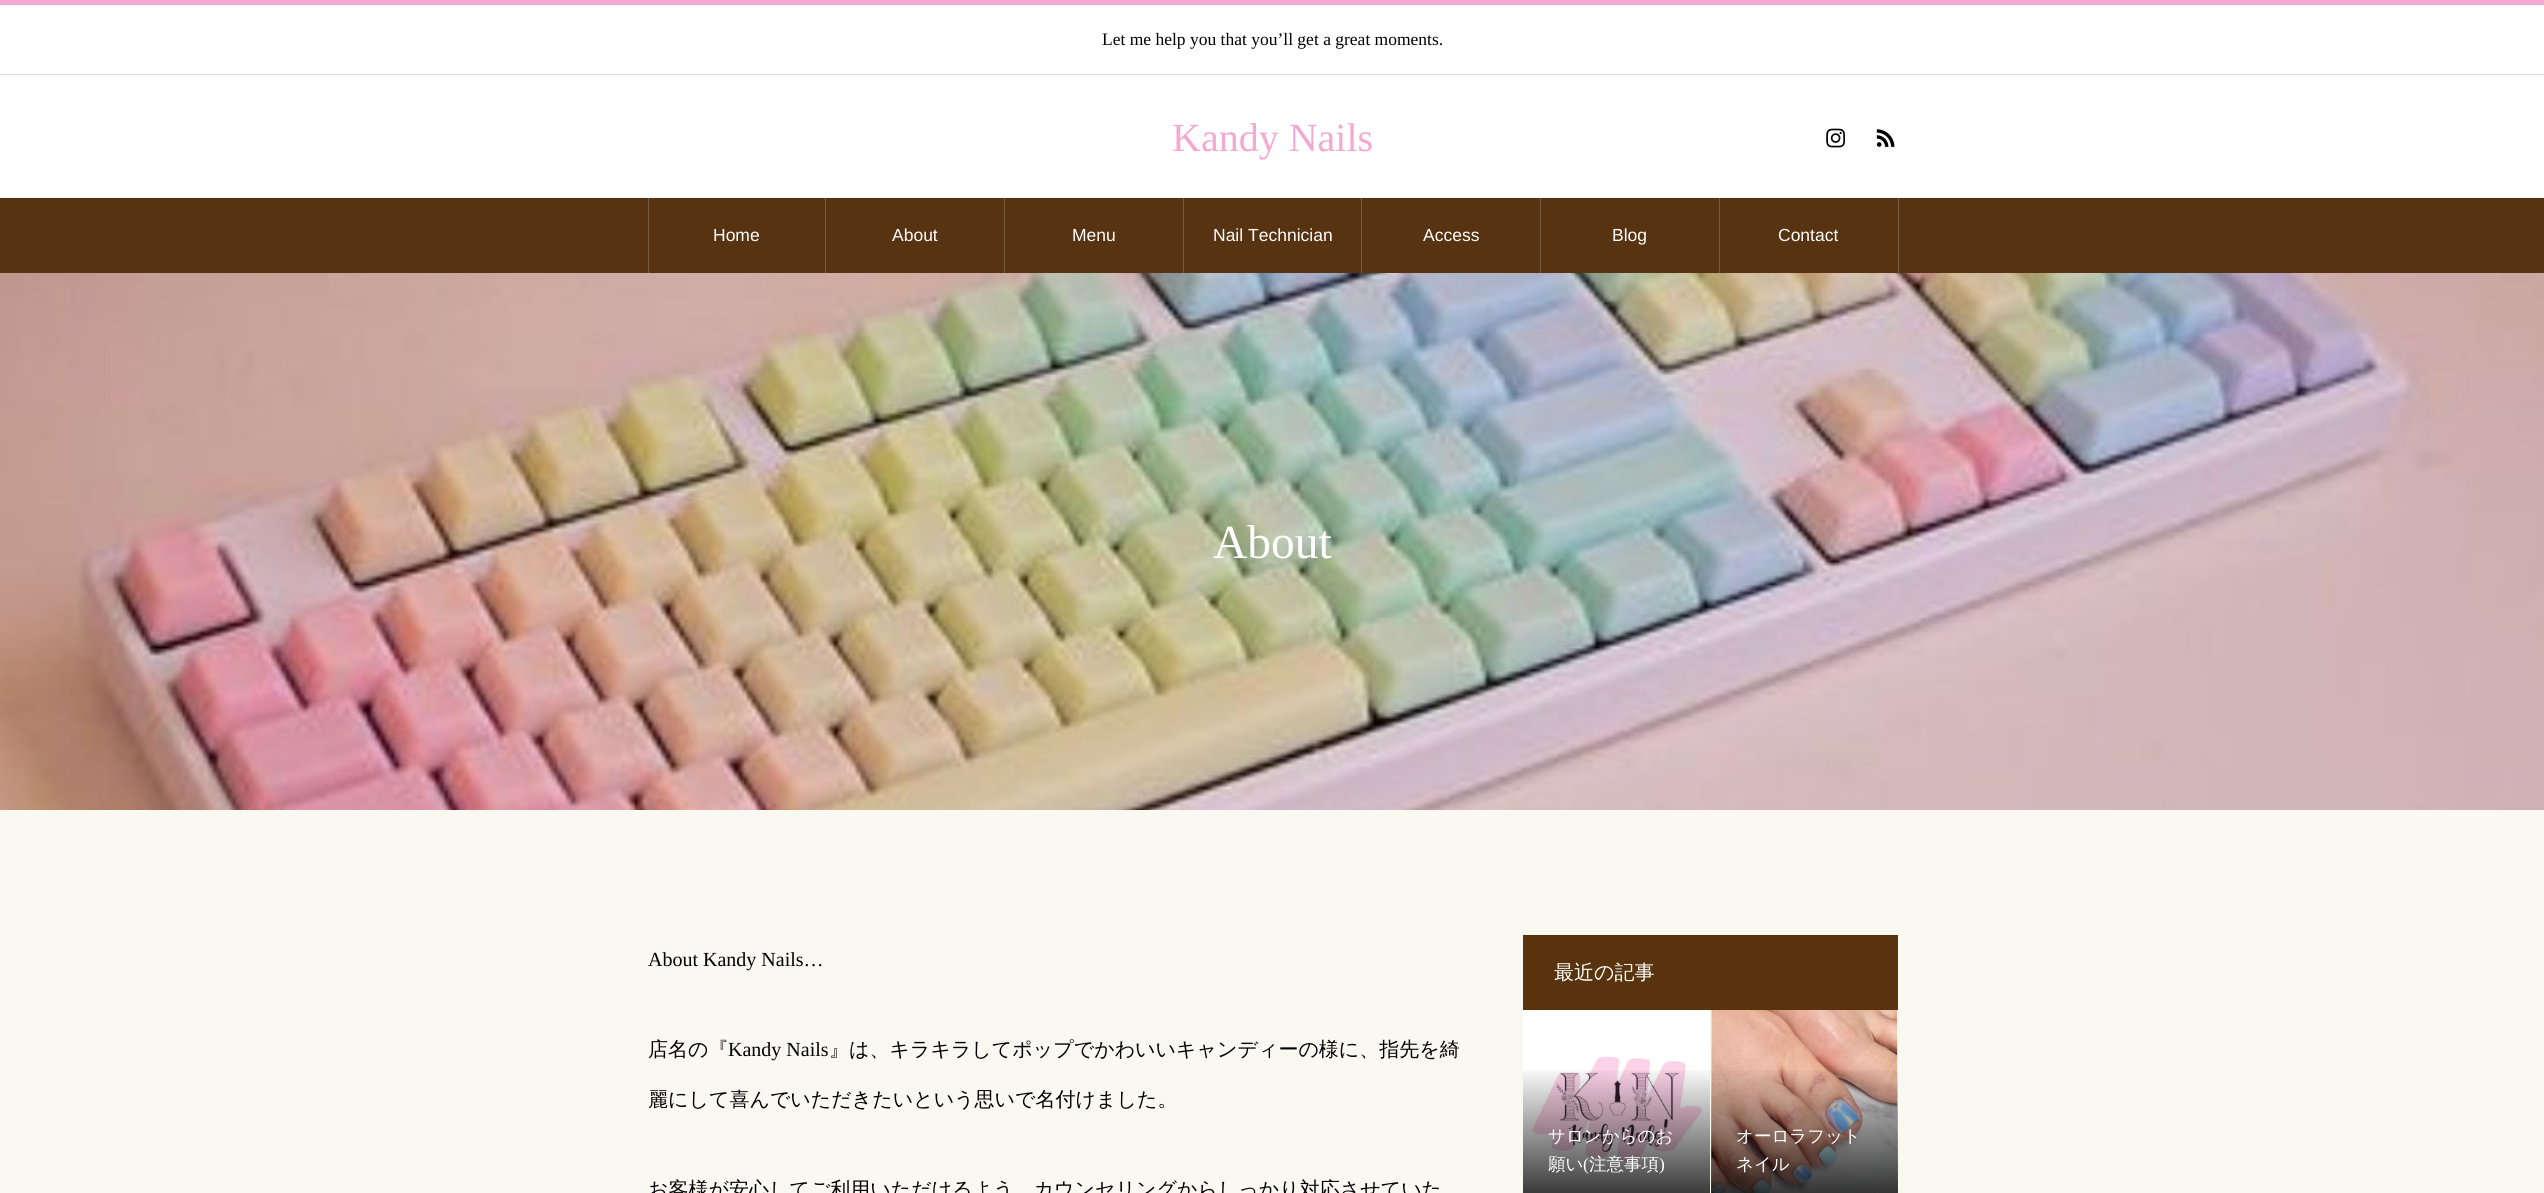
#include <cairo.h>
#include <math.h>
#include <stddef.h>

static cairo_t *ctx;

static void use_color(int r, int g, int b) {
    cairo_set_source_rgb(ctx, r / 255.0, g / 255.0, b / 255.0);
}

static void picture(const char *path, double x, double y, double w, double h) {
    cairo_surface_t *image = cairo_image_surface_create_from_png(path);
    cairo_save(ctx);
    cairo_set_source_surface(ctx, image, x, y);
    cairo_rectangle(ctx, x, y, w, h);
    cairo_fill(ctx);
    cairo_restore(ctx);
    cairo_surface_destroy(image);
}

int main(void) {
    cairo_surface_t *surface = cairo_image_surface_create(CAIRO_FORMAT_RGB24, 2544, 1193);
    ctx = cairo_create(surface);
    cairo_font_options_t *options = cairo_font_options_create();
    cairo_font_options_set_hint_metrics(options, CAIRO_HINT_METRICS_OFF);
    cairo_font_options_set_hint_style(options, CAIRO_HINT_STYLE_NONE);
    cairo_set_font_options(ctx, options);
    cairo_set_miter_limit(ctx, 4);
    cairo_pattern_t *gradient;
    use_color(249, 249, 242);
    cairo_paint(ctx);
    use_color(255, 255, 255);
    cairo_rectangle(ctx, 0, 5, 2544, 193);
    cairo_fill(ctx);
    use_color(244, 168, 210);
    cairo_rectangle(ctx, 0, 0, 2544, 5);
    cairo_fill(ctx);
    use_color(221, 221, 221);
    cairo_rectangle(ctx, 0, 74, 2544, 1);
    cairo_fill(ctx);
    cairo_select_font_face(ctx, "Liberation Serif", CAIRO_FONT_SLANT_NORMAL, CAIRO_FONT_WEIGHT_NORMAL);
    cairo_set_font_size(ctx, 17.5);
    use_color(0, 0, 0);
    cairo_move_to(ctx, 1102, 45);
    cairo_show_text(ctx, "Let me help you that you’ll get a great moments.");
    cairo_set_font_size(ctx, 40);
    use_color(244, 168, 210);
    cairo_move_to(ctx, 1172, 151);
    cairo_show_text(ctx, "Kandy Nails");
    picture("img1.png", 1826, 128, 19, 20);
    picture("img2.png", 1876, 129, 19, 18);
    use_color(87, 51, 18);
    cairo_rectangle(ctx, 0, 198, 2544, 75);
    cairo_fill(ctx);
    use_color(121, 92, 65);
    cairo_rectangle(ctx, 648, 198, 1, 75);
    cairo_fill(ctx);
    cairo_rectangle(ctx, 825, 198, 1, 75);
    cairo_fill(ctx);
    cairo_select_font_face(ctx, "Liberation Sans", CAIRO_FONT_SLANT_NORMAL, CAIRO_FONT_WEIGHT_NORMAL);
    cairo_set_font_size(ctx, 17.5);
    use_color(255, 255, 255);
    cairo_move_to(ctx, 713, 241);
    cairo_show_text(ctx, "Home");
    use_color(121, 92, 65);
    cairo_rectangle(ctx, 1004, 198, 1, 75);
    cairo_fill(ctx);
    use_color(255, 255, 255);
    cairo_move_to(ctx, 892, 241);
    cairo_show_text(ctx, "About");
    use_color(121, 92, 65);
    cairo_rectangle(ctx, 1183, 198, 1, 75);
    cairo_fill(ctx);
    use_color(255, 255, 255);
    cairo_move_to(ctx, 1072, 241);
    cairo_show_text(ctx, "Menu");
    use_color(121, 92, 65);
    cairo_rectangle(ctx, 1361, 198, 1, 75);
    cairo_fill(ctx);
    use_color(255, 255, 255);
    cairo_move_to(ctx, 1213, 241);
    cairo_show_text(ctx, "Nail Technician");
    use_color(121, 92, 65);
    cairo_rectangle(ctx, 1540, 198, 1, 75);
    cairo_fill(ctx);
    use_color(255, 255, 255);
    cairo_move_to(ctx, 1423, 241);
    cairo_show_text(ctx, "Access");
    use_color(121, 92, 65);
    cairo_rectangle(ctx, 1719, 198, 1, 75);
    cairo_fill(ctx);
    use_color(255, 255, 255);
    cairo_move_to(ctx, 1612, 241);
    cairo_show_text(ctx, "Blog");
    use_color(121, 92, 65);
    cairo_rectangle(ctx, 1898, 198, 1, 75);
    cairo_fill(ctx);
    use_color(255, 255, 255);
    cairo_move_to(ctx, 1778, 241);
    cairo_show_text(ctx, "Contact");
    picture("img3.png", 0, 273, 2544, 537);
    cairo_select_font_face(ctx, "Liberation Serif", CAIRO_FONT_SLANT_NORMAL, CAIRO_FONT_WEIGHT_NORMAL);
    cairo_set_font_size(ctx, 47.5);
    cairo_move_to(ctx, 1213, 558);
    cairo_show_text(ctx, "About");
    cairo_set_font_size(ctx, 20);
    use_color(0, 0, 0);
    cairo_move_to(ctx, 648, 966);
    cairo_show_text(ctx, "About Kandy Nails…");
    cairo_select_font_face(ctx, "WenQuanYi Zen Hei Medium", CAIRO_FONT_SLANT_NORMAL, CAIRO_FONT_WEIGHT_NORMAL);
    cairo_move_to(ctx, 648, 1056);
    cairo_show_text(ctx, "店名の『");
    cairo_select_font_face(ctx, "Liberation Serif", CAIRO_FONT_SLANT_NORMAL, CAIRO_FONT_WEIGHT_NORMAL);
    cairo_move_to(ctx, 728, 1056);
    cairo_show_text(ctx, "Kandy Nails");
    cairo_select_font_face(ctx, "WenQuanYi Zen Hei Medium", CAIRO_FONT_SLANT_NORMAL, CAIRO_FONT_WEIGHT_NORMAL);
    cairo_move_to(ctx, 829, 1056);
    cairo_show_text(ctx, "』は、キラキラしてポップでかわいいキャンディーの様に、指先を綺");
    cairo_move_to(ctx, 648, 1106);
    cairo_show_text(ctx, "麗にして喜んでいただきたいという思いで名付けました。");
    cairo_move_to(ctx, 648, 1196);
    cairo_show_text(ctx, "お客様が安心してご利用いただけるよう、カウンセリングからしっかり対応させていた");
    use_color(88, 51, 13);
    cairo_rectangle(ctx, 1523, 935, 375, 75);
    cairo_fill(ctx);
    use_color(255, 255, 255);
    cairo_move_to(ctx, 1554, 979);
    cairo_show_text(ctx, "最近の記事");
    cairo_rectangle(ctx, 1523, 1010, 187, 183);
    cairo_fill(ctx);
    picture("img4.png", 1531, 1056, 172, 106);
    gradient = cairo_pattern_create_linear(1616, 1066, 1616, 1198);
    cairo_pattern_add_color_stop_rgba(gradient, 0, 0, 0, 0, 0);
    cairo_pattern_add_color_stop_rgba(gradient, 1, 0, 0, 0, 0.8);
    cairo_set_source(ctx, gradient);
    cairo_pattern_destroy(gradient);
    cairo_rectangle(ctx, 1523, 1070, 187, 123);
    cairo_fill(ctx);
    cairo_set_font_size(ctx, 17.5);
    use_color(255, 255, 255);
    cairo_move_to(ctx, 1548, 1142);
    cairo_show_text(ctx, "サロンからのお");
    cairo_move_to(ctx, 1548, 1170);
    cairo_show_text(ctx, "願い");
    cairo_select_font_face(ctx, "Liberation Serif", CAIRO_FONT_SLANT_NORMAL, CAIRO_FONT_WEIGHT_NORMAL);
    cairo_move_to(ctx, 1583, 1170);
    cairo_show_text(ctx, "(");
    cairo_select_font_face(ctx, "WenQuanYi Zen Hei Medium", CAIRO_FONT_SLANT_NORMAL, CAIRO_FONT_WEIGHT_NORMAL);
    cairo_move_to(ctx, 1589, 1170);
    cairo_show_text(ctx, "注意事項");
    cairo_select_font_face(ctx, "Liberation Serif", CAIRO_FONT_SLANT_NORMAL, CAIRO_FONT_WEIGHT_NORMAL);
    cairo_move_to(ctx, 1659, 1170);
    cairo_show_text(ctx, ")");
    cairo_rectangle(ctx, 1711, 1010, 187, 183);
    cairo_fill(ctx);
    picture("img5.png", 1711, 1010, 187, 183);
    gradient = cairo_pattern_create_linear(1804, 1066, 1804, 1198);
    cairo_pattern_add_color_stop_rgba(gradient, 0, 0, 0, 0, 0);
    cairo_pattern_add_color_stop_rgba(gradient, 1, 0, 0, 0, 0.8);
    cairo_set_source(ctx, gradient);
    cairo_pattern_destroy(gradient);
    cairo_rectangle(ctx, 1711, 1070, 187, 123);
    cairo_fill(ctx);
    cairo_select_font_face(ctx, "WenQuanYi Zen Hei Medium", CAIRO_FONT_SLANT_NORMAL, CAIRO_FONT_WEIGHT_NORMAL);
    use_color(255, 255, 255);
    cairo_move_to(ctx, 1736, 1142);
    cairo_show_text(ctx, "オーロラフット");
    cairo_move_to(ctx, 1736, 1170);
    cairo_show_text(ctx, "ネイル");
    cairo_surface_write_to_png(surface, "result.png");
    cairo_font_options_destroy(options);
    cairo_destroy(ctx);
    cairo_surface_destroy(surface);
    return 0;
}
